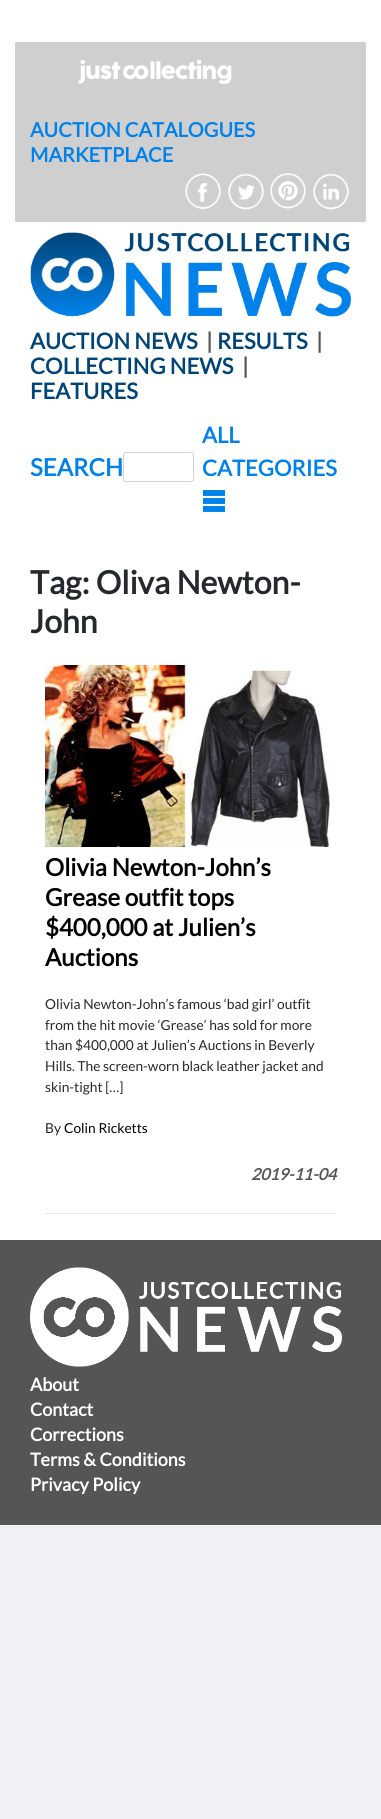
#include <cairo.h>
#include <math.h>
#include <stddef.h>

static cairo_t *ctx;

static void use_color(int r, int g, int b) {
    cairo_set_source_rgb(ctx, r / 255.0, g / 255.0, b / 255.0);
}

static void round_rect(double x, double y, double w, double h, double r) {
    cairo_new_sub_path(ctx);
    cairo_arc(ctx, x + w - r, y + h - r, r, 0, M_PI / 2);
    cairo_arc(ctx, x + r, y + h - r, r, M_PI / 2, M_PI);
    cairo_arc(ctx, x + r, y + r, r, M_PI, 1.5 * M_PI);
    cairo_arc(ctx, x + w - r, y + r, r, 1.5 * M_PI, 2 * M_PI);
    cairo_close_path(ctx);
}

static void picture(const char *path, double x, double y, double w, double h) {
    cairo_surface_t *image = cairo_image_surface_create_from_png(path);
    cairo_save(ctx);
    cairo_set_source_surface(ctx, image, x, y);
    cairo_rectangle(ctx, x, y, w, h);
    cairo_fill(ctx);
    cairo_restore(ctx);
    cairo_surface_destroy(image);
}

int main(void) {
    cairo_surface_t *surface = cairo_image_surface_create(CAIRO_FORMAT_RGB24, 381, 1819);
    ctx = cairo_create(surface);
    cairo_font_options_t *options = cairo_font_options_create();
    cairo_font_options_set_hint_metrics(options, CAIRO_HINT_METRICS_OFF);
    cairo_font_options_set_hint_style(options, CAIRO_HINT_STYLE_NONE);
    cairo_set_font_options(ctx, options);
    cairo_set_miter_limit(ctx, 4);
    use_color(240, 240, 245);
    cairo_paint(ctx);
    use_color(255, 255, 255);
    cairo_rectangle(ctx, 0, 0, 381, 1240);
    cairo_fill(ctx);
    use_color(207, 207, 207);
    cairo_rectangle(ctx, 15, 42, 351, 120);
    cairo_fill(ctx);
    picture("img1.png", 78, 60, 154, 24);
    cairo_select_font_face(ctx, "Lato", CAIRO_FONT_SLANT_NORMAL, CAIRO_FONT_WEIGHT_BOLD);
    cairo_set_font_size(ctx, 20);
    use_color(1, 130, 234);
    cairo_move_to(ctx, 30, 137);
    cairo_show_text(ctx, "AUCTION CATALOGUES");
    cairo_move_to(ctx, 30, 162);
    cairo_show_text(ctx, "MARKETPLACE");
    use_color(207, 207, 207);
    cairo_rectangle(ctx, 15, 162, 351, 60);
    cairo_fill(ctx);
    picture("img2.png", 185, 173, 36, 36);
    picture("img3.png", 228, 173, 36, 37);
    picture("img4.png", 270, 173, 36, 36);
    picture("img5.png", 313, 173, 36, 37);
    picture("img6.png", 30, 232, 321, 85);
    cairo_set_font_size(ctx, 22);
    use_color(1, 68, 119);
    cairo_move_to(ctx, 30, 349);
    cairo_show_text(ctx, "AUCTION NEWS");
    use_color(85, 85, 85);
    cairo_move_to(ctx, 206, 349);
    cairo_show_text(ctx, "|");
    use_color(1, 68, 119);
    cairo_move_to(ctx, 217, 349);
    cairo_show_text(ctx, "RESULTS");
    use_color(85, 85, 85);
    cairo_move_to(ctx, 316, 349);
    cairo_show_text(ctx, "|");
    use_color(1, 68, 119);
    cairo_move_to(ctx, 30, 374);
    cairo_show_text(ctx, "COLLECTING NEWS");
    use_color(85, 85, 85);
    cairo_move_to(ctx, 242, 374);
    cairo_show_text(ctx, "|");
    use_color(1, 68, 119);
    cairo_move_to(ctx, 30, 399);
    cairo_show_text(ctx, "FEATURES");
    cairo_set_font_size(ctx, 24);
    use_color(1, 130, 234);
    cairo_move_to(ctx, 30, 476);
    cairo_show_text(ctx, "SEARCH");
    round_rect(123.5, 452.5, 70, 29, 2.5);
    use_color(206, 212, 218);
    cairo_set_line_width(ctx, 1);
    cairo_stroke(ctx);
    cairo_set_font_size(ctx, 22);
    use_color(1, 130, 234);
    cairo_move_to(ctx, 202, 443);
    cairo_show_text(ctx, "ALL");
    cairo_move_to(ctx, 202, 476);
    cairo_show_text(ctx, "CATEGORIES");
    picture("img7.png", 203, 490, 22, 22);
    cairo_set_font_size(ctx, 32);
    use_color(36, 41, 46);
    cairo_move_to(ctx, 30, 594);
    cairo_show_text(ctx, "Tag: Oliva Newton-");
    cairo_move_to(ctx, 30, 633);
    cairo_show_text(ctx, "John");
    picture("img8.png", 45, 665, 285, 182);
    cairo_set_font_size(ctx, 24);
    use_color(0, 0, 0);
    cairo_move_to(ctx, 45, 876);
    cairo_show_text(ctx, "Olivia Newton-John’s");
    cairo_move_to(ctx, 45, 906);
    cairo_show_text(ctx, "Grease outfit tops");
    cairo_move_to(ctx, 45, 936);
    cairo_show_text(ctx, "$400,000 at Julien’s");
    cairo_move_to(ctx, 45, 966);
    cairo_show_text(ctx, "Auctions");
    cairo_select_font_face(ctx, "Lato", CAIRO_FONT_SLANT_NORMAL, CAIRO_FONT_WEIGHT_NORMAL);
    cairo_set_font_size(ctx, 13.75);
    use_color(36, 41, 46);
    cairo_move_to(ctx, 45, 1009);
    cairo_show_text(ctx, "Olivia Newton-John’s famous ‘bad girl’ outfit");
    cairo_move_to(ctx, 45, 1030);
    cairo_show_text(ctx, "from the hit movie ‘Grease’ has sold for more");
    cairo_move_to(ctx, 45, 1050);
    cairo_show_text(ctx, "than $400,000 at Julien’s Auctions in Beverly");
    cairo_move_to(ctx, 45, 1071);
    cairo_show_text(ctx, "Hills. The screen-worn black leather jacket and");
    cairo_move_to(ctx, 45, 1092);
    cairo_show_text(ctx, "skin-tight […]");
    cairo_move_to(ctx, 45, 1133);
    cairo_show_text(ctx, "By");
    use_color(0, 0, 0);
    cairo_move_to(ctx, 64, 1133);
    cairo_show_text(ctx, "Colin Ricketts");
    cairo_select_font_face(ctx, "Lato", CAIRO_FONT_SLANT_ITALIC, CAIRO_FONT_WEIGHT_BOLD);
    cairo_set_font_size(ctx, 16);
    use_color(85, 85, 85);
    cairo_move_to(ctx, 251, 1180);
    cairo_show_text(ctx, "2019-11-04");
    use_color(230, 230, 230);
    cairo_rectangle(ctx, 45, 1213, 291, 1);
    cairo_fill(ctx);
    use_color(85, 85, 85);
    cairo_rectangle(ctx, 0, 1240, 381, 285);
    cairo_fill(ctx);
    picture("img9.png", 30, 1267, 312, 100);
    cairo_select_font_face(ctx, "Lato", CAIRO_FONT_SLANT_NORMAL, CAIRO_FONT_WEIGHT_BOLD);
    cairo_set_font_size(ctx, 18);
    use_color(255, 255, 255);
    cairo_move_to(ctx, 30, 1391);
    cairo_show_text(ctx, "About");
    cairo_move_to(ctx, 30, 1416);
    cairo_show_text(ctx, "Contact");
    cairo_move_to(ctx, 30, 1441);
    cairo_show_text(ctx, "Corrections");
    cairo_move_to(ctx, 30, 1466);
    cairo_show_text(ctx, "Terms & Conditions");
    cairo_move_to(ctx, 30, 1491);
    cairo_show_text(ctx, "Privacy Policy");
    cairo_surface_write_to_png(surface, "result.png");
    cairo_font_options_destroy(options);
    cairo_destroy(ctx);
    cairo_surface_destroy(surface);
    return 0;
}
